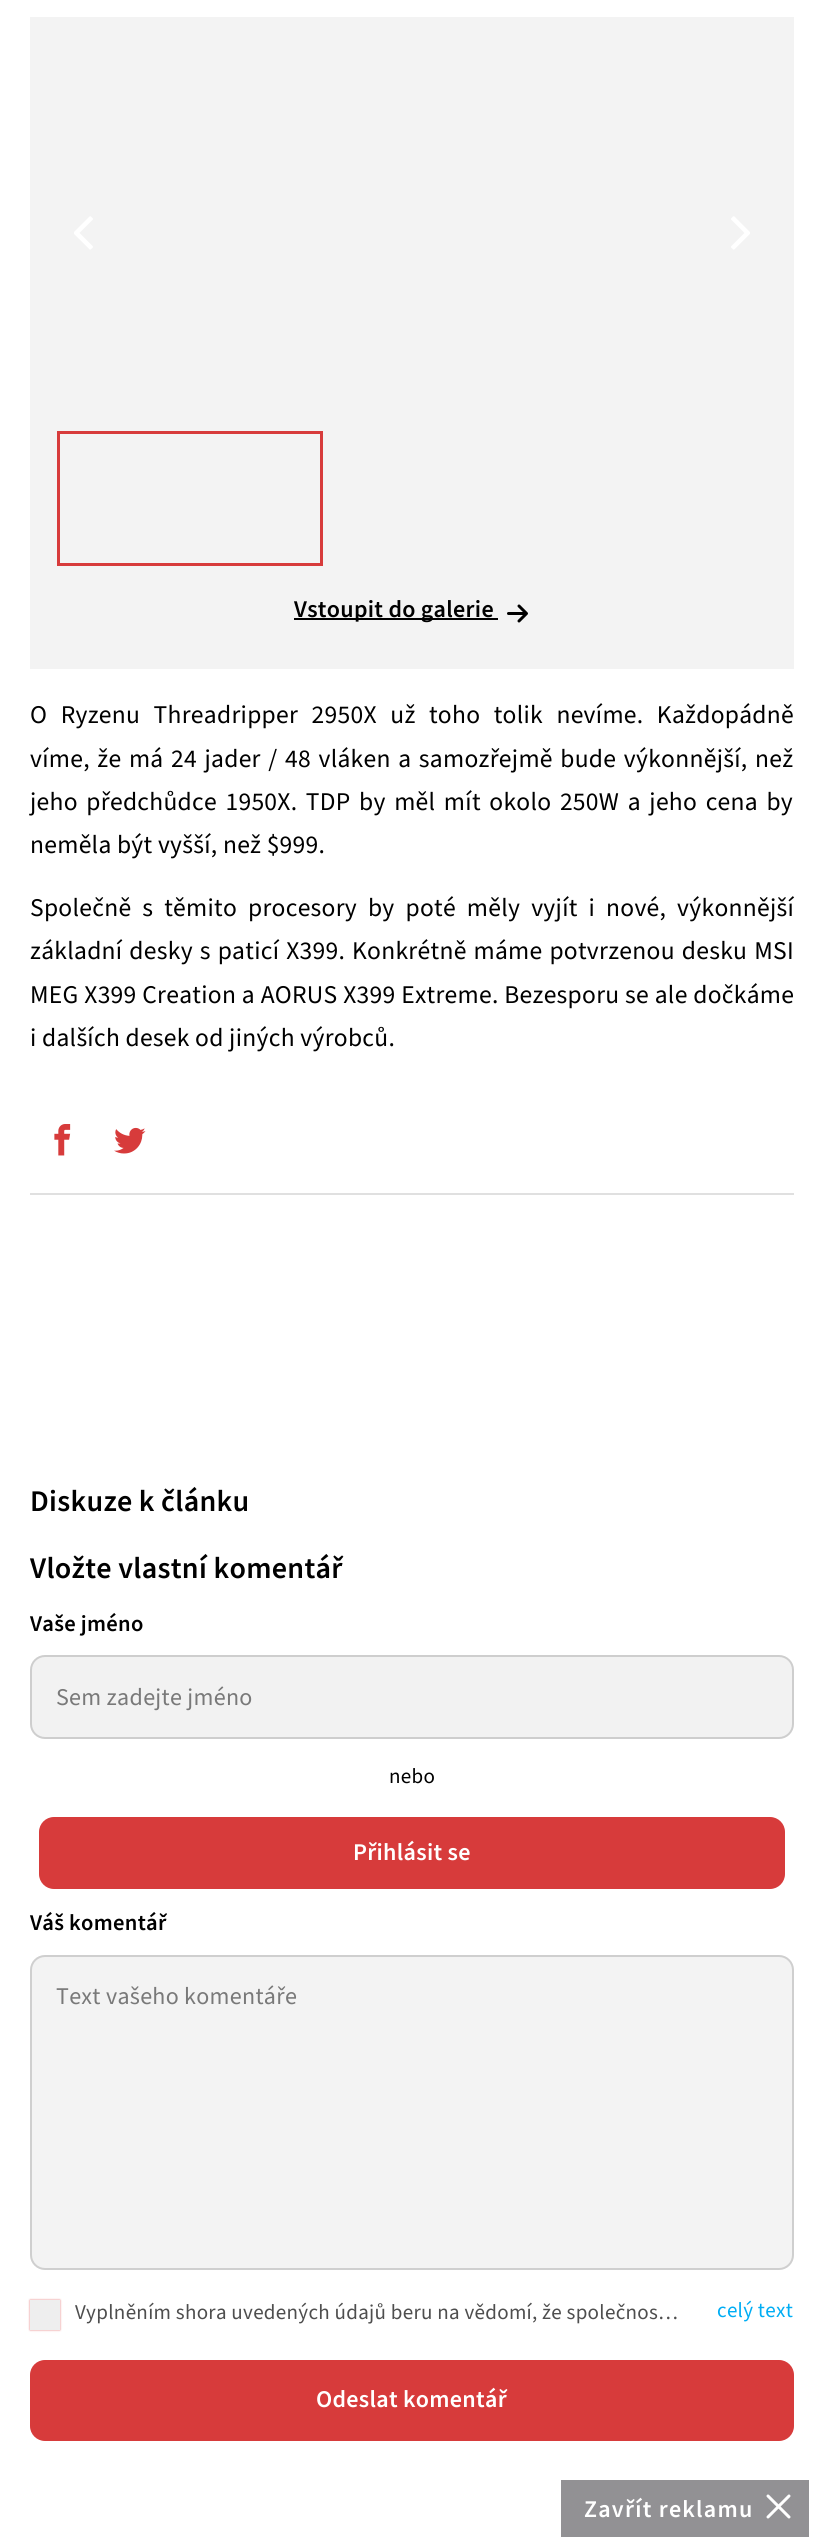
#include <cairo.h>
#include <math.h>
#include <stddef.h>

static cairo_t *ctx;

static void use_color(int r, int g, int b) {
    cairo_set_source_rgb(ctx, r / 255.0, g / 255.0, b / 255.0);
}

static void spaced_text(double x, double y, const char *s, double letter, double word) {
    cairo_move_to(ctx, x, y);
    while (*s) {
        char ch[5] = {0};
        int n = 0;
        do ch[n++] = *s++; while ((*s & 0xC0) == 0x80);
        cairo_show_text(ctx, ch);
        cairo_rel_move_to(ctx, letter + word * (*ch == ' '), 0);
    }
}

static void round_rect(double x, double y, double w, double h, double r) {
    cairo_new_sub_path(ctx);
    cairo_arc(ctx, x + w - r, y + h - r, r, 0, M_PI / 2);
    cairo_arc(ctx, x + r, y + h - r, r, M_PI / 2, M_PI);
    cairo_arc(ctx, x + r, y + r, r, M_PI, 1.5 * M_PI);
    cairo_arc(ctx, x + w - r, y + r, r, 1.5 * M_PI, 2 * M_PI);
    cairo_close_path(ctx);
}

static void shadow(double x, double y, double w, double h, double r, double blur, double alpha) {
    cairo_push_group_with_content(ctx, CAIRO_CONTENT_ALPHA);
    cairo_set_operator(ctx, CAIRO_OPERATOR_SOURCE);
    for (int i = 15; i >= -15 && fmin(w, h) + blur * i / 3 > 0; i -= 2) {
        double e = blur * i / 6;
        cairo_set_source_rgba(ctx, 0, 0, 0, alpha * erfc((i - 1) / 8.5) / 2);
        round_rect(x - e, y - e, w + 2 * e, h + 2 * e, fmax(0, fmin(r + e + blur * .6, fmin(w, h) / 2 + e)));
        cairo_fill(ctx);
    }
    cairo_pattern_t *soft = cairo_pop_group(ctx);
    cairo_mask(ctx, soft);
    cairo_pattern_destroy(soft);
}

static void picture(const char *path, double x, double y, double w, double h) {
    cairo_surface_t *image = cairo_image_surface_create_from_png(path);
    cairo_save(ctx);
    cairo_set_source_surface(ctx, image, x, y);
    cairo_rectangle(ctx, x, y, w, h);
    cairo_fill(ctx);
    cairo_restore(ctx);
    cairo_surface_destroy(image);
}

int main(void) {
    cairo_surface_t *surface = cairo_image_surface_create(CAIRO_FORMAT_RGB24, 823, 2542);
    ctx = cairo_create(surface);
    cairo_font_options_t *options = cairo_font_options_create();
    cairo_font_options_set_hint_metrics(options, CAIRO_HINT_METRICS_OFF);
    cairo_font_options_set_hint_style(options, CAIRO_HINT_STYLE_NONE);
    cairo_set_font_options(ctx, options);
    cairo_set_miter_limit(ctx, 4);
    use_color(255, 255, 255);
    cairo_paint(ctx);
    use_color(243, 243, 243);
    cairo_rectangle(ctx, 30, 17, 764, 652);
    cairo_fill(ctx);
    picture("img1.png", 74, 216, 19, 34);
    picture("img2.png", 731, 216, 19, 34);
    cairo_rectangle(ctx, 58.5, 432.5, 263, 132);
    use_color(215, 59, 59);
    cairo_set_line_width(ctx, 3);
    cairo_stroke(ctx);
    use_color(0, 0, 0);
    cairo_rectangle(ctx, 294, 618, 204, 2);
    cairo_fill(ctx);
    cairo_select_font_face(ctx, "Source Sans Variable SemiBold", CAIRO_FONT_SLANT_NORMAL, CAIRO_FONT_WEIGHT_NORMAL);
    cairo_set_font_size(ctx, 24);
    spaced_text(294, 617, "Vstoupit do galerie", 0.3, 0);
    picture("img3.png", 507, 604, 21, 19);
    cairo_select_font_face(ctx, "Source Sans Variable", CAIRO_FONT_SLANT_NORMAL, CAIRO_FONT_WEIGHT_NORMAL);
    cairo_set_font_size(ctx, 25.5);
    spaced_text(30, 723, "O Ryzenu Threadripper 2950X už toho tolik nevíme. Každopádně", 0.3, 8);
    spaced_text(30, 767, "víme, že má 24 jader / 48 vláken a samozřejmě bude výkonnější, než", 0.3, 2.1);
    spaced_text(30, 810, "jeho předchůdce 1950X. TDP by měl mít okolo 250W a jeho cena by", 0.3, 3.1);
    spaced_text(30, 853, "neměla být vyšší, než $999.", 0.3, 0);
    spaced_text(30, 916, "Společně s těmito procesory by poté měly vyjít i nové, výkonnější", 0.3, 5.5);
    spaced_text(30, 959, "základní desky s paticí X399. Konkrétně máme potvrzenou desku MSI", 0.3, 1.5);
    spaced_text(30, 1003, "MEG X399 Creation a AORUS X399 Extreme. Bezesporu se ale dočkáme", 0.3, 0.25);
    spaced_text(30, 1046, "i dalších desek od jiných výrobců.", 0.3, 0);
    picture("img4.png", 54, 1124, 17, 32);
    picture("img5.png", 114, 1127, 32, 27);
    use_color(224, 224, 224);
    cairo_rectangle(ctx, 30, 1193, 764, 2);
    cairo_fill(ctx);
    cairo_select_font_face(ctx, "Source Sans Variable SemiBold", CAIRO_FONT_SLANT_NORMAL, CAIRO_FONT_WEIGHT_NORMAL);
    cairo_set_font_size(ctx, 30);
    use_color(0, 0, 0);
    spaced_text(30, 1511, "Diskuze k článku", 0.3, 0);
    spaced_text(30, 1578, "Vložte vlastní komentář", 0.3, 0);
    cairo_set_font_size(ctx, 22.5);
    spaced_text(30, 1631, "Vaše jméno", 0.3, 0);
    use_color(242, 242, 242);
    round_rect(30, 1655, 764, 84, 15);
    cairo_fill(ctx);
    round_rect(31, 1656, 762, 82, 14);
    cairo_set_source_rgba(ctx, 0, 0, 0, 0.15);
    cairo_set_line_width(ctx, 2);
    cairo_stroke(ctx);
    cairo_select_font_face(ctx, "Source Sans Variable", CAIRO_FONT_SLANT_NORMAL, CAIRO_FONT_WEIGHT_NORMAL);
    cairo_set_font_size(ctx, 24);
    use_color(121, 121, 121);
    spaced_text(56, 1705, "Sem zadejte jméno", 0.3, 0);
    cairo_set_font_size(ctx, 21);
    use_color(0, 0, 0);
    spaced_text(389, 1783, "nebo", 0.3, 0);
    use_color(215, 59, 59);
    round_rect(39, 1817, 746, 72, 15);
    cairo_fill(ctx);
    cairo_select_font_face(ctx, "Source Sans Variable SemiBold", CAIRO_FONT_SLANT_NORMAL, CAIRO_FONT_WEIGHT_NORMAL);
    cairo_set_font_size(ctx, 24);
    use_color(255, 255, 255);
    spaced_text(353, 1860, "Přihlásit se", 0.3, 0);
    cairo_set_font_size(ctx, 22.5);
    use_color(0, 0, 0);
    spaced_text(30, 1930, "Váš komentář", 0.3, 0);
    use_color(243, 243, 243);
    round_rect(30, 1955, 764, 315, 15);
    cairo_fill(ctx);
    round_rect(31, 1956, 762, 313, 14);
    cairo_set_source_rgba(ctx, 0, 0, 0, 0.15);
    cairo_stroke(ctx);
    cairo_select_font_face(ctx, "Source Sans Variable", CAIRO_FONT_SLANT_NORMAL, CAIRO_FONT_WEIGHT_NORMAL);
    cairo_set_font_size(ctx, 24);
    use_color(121, 121, 121);
    spaced_text(56, 2004, "Text vašeho komentáře", 0.3, 0);
    use_color(215, 59, 59);
    shadow(30, 2300, 30, 30, 0, 1, 0.68);
    use_color(238, 238, 238);
    cairo_rectangle(ctx, 30, 2300, 30, 30);
    cairo_fill(ctx);
    cairo_set_font_size(ctx, 21);
    use_color(78, 78, 78);
    spaced_text(75, 2319, "Vyplněním shora uvedených údajů beru na vědomí, že společnos…", 0.3, 0);
    use_color(0, 173, 244);
    spaced_text(717, 2317, "celý text", 0.3, 0);
    use_color(215, 59, 59);
    round_rect(30, 2360, 764, 81, 15);
    cairo_fill(ctx);
    cairo_select_font_face(ctx, "Source Sans Variable SemiBold", CAIRO_FONT_SLANT_NORMAL, CAIRO_FONT_WEIGHT_NORMAL);
    cairo_set_font_size(ctx, 24);
    use_color(255, 255, 255);
    spaced_text(316, 2407, "Odeslat komentář", 0.3, 0);
    use_color(146, 145, 148);
    cairo_rectangle(ctx, 561, 2480, 248, 57);
    cairo_fill(ctx);
    use_color(255, 255, 255);
    spaced_text(584, 2517, "Zavřít reklamu", 1.25, 0);
    picture("img6.png", 766, 2494, 25, 25);
    cairo_surface_write_to_png(surface, "result.png");
    cairo_font_options_destroy(options);
    cairo_destroy(ctx);
    cairo_surface_destroy(surface);
    return 0;
}
